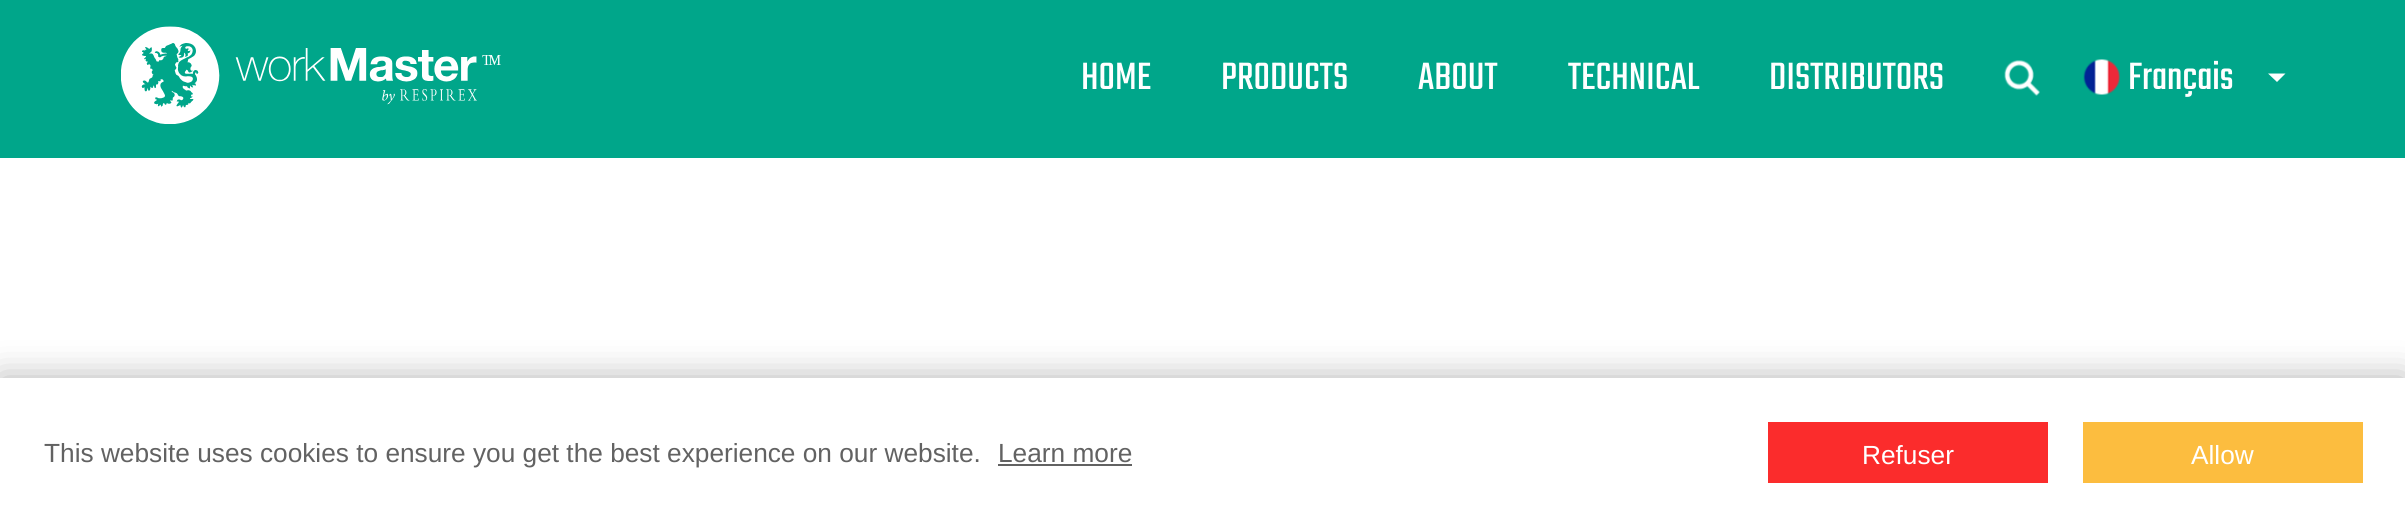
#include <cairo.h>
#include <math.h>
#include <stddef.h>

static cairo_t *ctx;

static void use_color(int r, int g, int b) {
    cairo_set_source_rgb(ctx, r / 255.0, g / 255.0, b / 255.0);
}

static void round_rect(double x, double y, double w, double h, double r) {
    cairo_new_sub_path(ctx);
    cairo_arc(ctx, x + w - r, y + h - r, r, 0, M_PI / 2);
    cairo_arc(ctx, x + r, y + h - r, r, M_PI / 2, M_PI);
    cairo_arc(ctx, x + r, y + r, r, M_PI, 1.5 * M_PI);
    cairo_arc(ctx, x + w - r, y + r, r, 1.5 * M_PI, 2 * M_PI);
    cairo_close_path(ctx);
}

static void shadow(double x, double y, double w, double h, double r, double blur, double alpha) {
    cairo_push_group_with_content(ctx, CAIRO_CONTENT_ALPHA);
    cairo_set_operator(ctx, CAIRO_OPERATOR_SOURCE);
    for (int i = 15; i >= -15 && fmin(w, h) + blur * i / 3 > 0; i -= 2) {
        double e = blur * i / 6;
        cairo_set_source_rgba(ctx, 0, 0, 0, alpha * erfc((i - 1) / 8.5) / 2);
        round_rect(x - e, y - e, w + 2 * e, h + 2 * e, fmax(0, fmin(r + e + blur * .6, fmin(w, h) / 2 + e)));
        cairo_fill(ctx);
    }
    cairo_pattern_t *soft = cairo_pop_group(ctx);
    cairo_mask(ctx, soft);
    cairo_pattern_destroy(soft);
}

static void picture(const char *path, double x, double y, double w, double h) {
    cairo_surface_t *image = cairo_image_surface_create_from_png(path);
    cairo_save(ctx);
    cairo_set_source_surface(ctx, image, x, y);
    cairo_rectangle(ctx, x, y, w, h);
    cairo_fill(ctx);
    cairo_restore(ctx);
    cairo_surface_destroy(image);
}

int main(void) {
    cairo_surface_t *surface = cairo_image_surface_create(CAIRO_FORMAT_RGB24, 2405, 526);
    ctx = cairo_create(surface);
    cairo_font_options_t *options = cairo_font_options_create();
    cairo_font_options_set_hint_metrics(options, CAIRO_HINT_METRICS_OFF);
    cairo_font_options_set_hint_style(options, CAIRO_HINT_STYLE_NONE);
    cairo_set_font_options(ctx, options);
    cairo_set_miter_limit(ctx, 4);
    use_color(255, 255, 255);
    cairo_paint(ctx);
    use_color(0, 166, 138);
    cairo_rectangle(ctx, 0, 0, 2405, 158);
    cairo_fill(ctx);
    picture("img1.png", 121, 26, 380, 98);
    cairo_select_font_face(ctx, "Teko", CAIRO_FONT_SLANT_NORMAL, CAIRO_FONT_WEIGHT_NORMAL);
    cairo_set_font_size(ctx, 42);
    use_color(255, 255, 255);
    cairo_move_to(ctx, 1081, 89);
    cairo_show_text(ctx, "HOME");
    cairo_move_to(ctx, 1221, 89);
    cairo_show_text(ctx, "PRODUCTS");
    cairo_move_to(ctx, 1418, 89);
    cairo_show_text(ctx, "ABOUT");
    cairo_move_to(ctx, 1568, 89);
    cairo_show_text(ctx, "TECHNICAL");
    cairo_move_to(ctx, 1769, 89);
    cairo_show_text(ctx, "DISTRIBUTORS");
    picture("img2.png", 2004, 60, 36, 36);
    picture("img3.png", 2083, 59, 37, 36);
    cairo_move_to(ctx, 2128, 89);
    cairo_show_text(ctx, "Français");
    cairo_new_path(ctx);
    cairo_move_to(ctx, 2268, 73.5);
    cairo_line_to(ctx, 2285.5, 73.5);
    cairo_line_to(ctx, 2277, 82);
    cairo_close_path(ctx);
    cairo_fill(ctx);
    use_color(0, 0, 0);
    shadow(0, 378, 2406, 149, 0, 17.5, 0.3);
    use_color(255, 255, 255);
    cairo_rectangle(ctx, 0, 378, 2405, 148);
    cairo_fill(ctx);
    cairo_select_font_face(ctx, "Liberation Sans", CAIRO_FONT_SLANT_NORMAL, CAIRO_FONT_WEIGHT_NORMAL);
    cairo_set_font_size(ctx, 26.25);
    use_color(98, 98, 98);
    cairo_move_to(ctx, 44, 462);
    cairo_show_text(ctx, "This website uses cookies to ensure you get the best experience on our website.");
    cairo_move_to(ctx, 998, 462);
    cairo_show_text(ctx, "Learn more");
    cairo_rectangle(ctx, 998, 464, 134, 2);
    cairo_fill(ctx);
    use_color(251, 44, 44);
    cairo_rectangle(ctx, 1769, 423, 278, 59);
    cairo_fill_preserve(ctx);
    cairo_stroke(ctx);
    use_color(255, 255, 255);
    cairo_move_to(ctx, 1862, 464);
    cairo_show_text(ctx, "Refuser");
    use_color(252, 189, 63);
    cairo_rectangle(ctx, 2084, 423, 278, 59);
    cairo_fill_preserve(ctx);
    cairo_stroke(ctx);
    use_color(255, 255, 255);
    cairo_move_to(ctx, 2191, 464);
    cairo_show_text(ctx, "Allow");
    cairo_surface_write_to_png(surface, "result.png");
    cairo_font_options_destroy(options);
    cairo_destroy(ctx);
    cairo_surface_destroy(surface);
    return 0;
}
